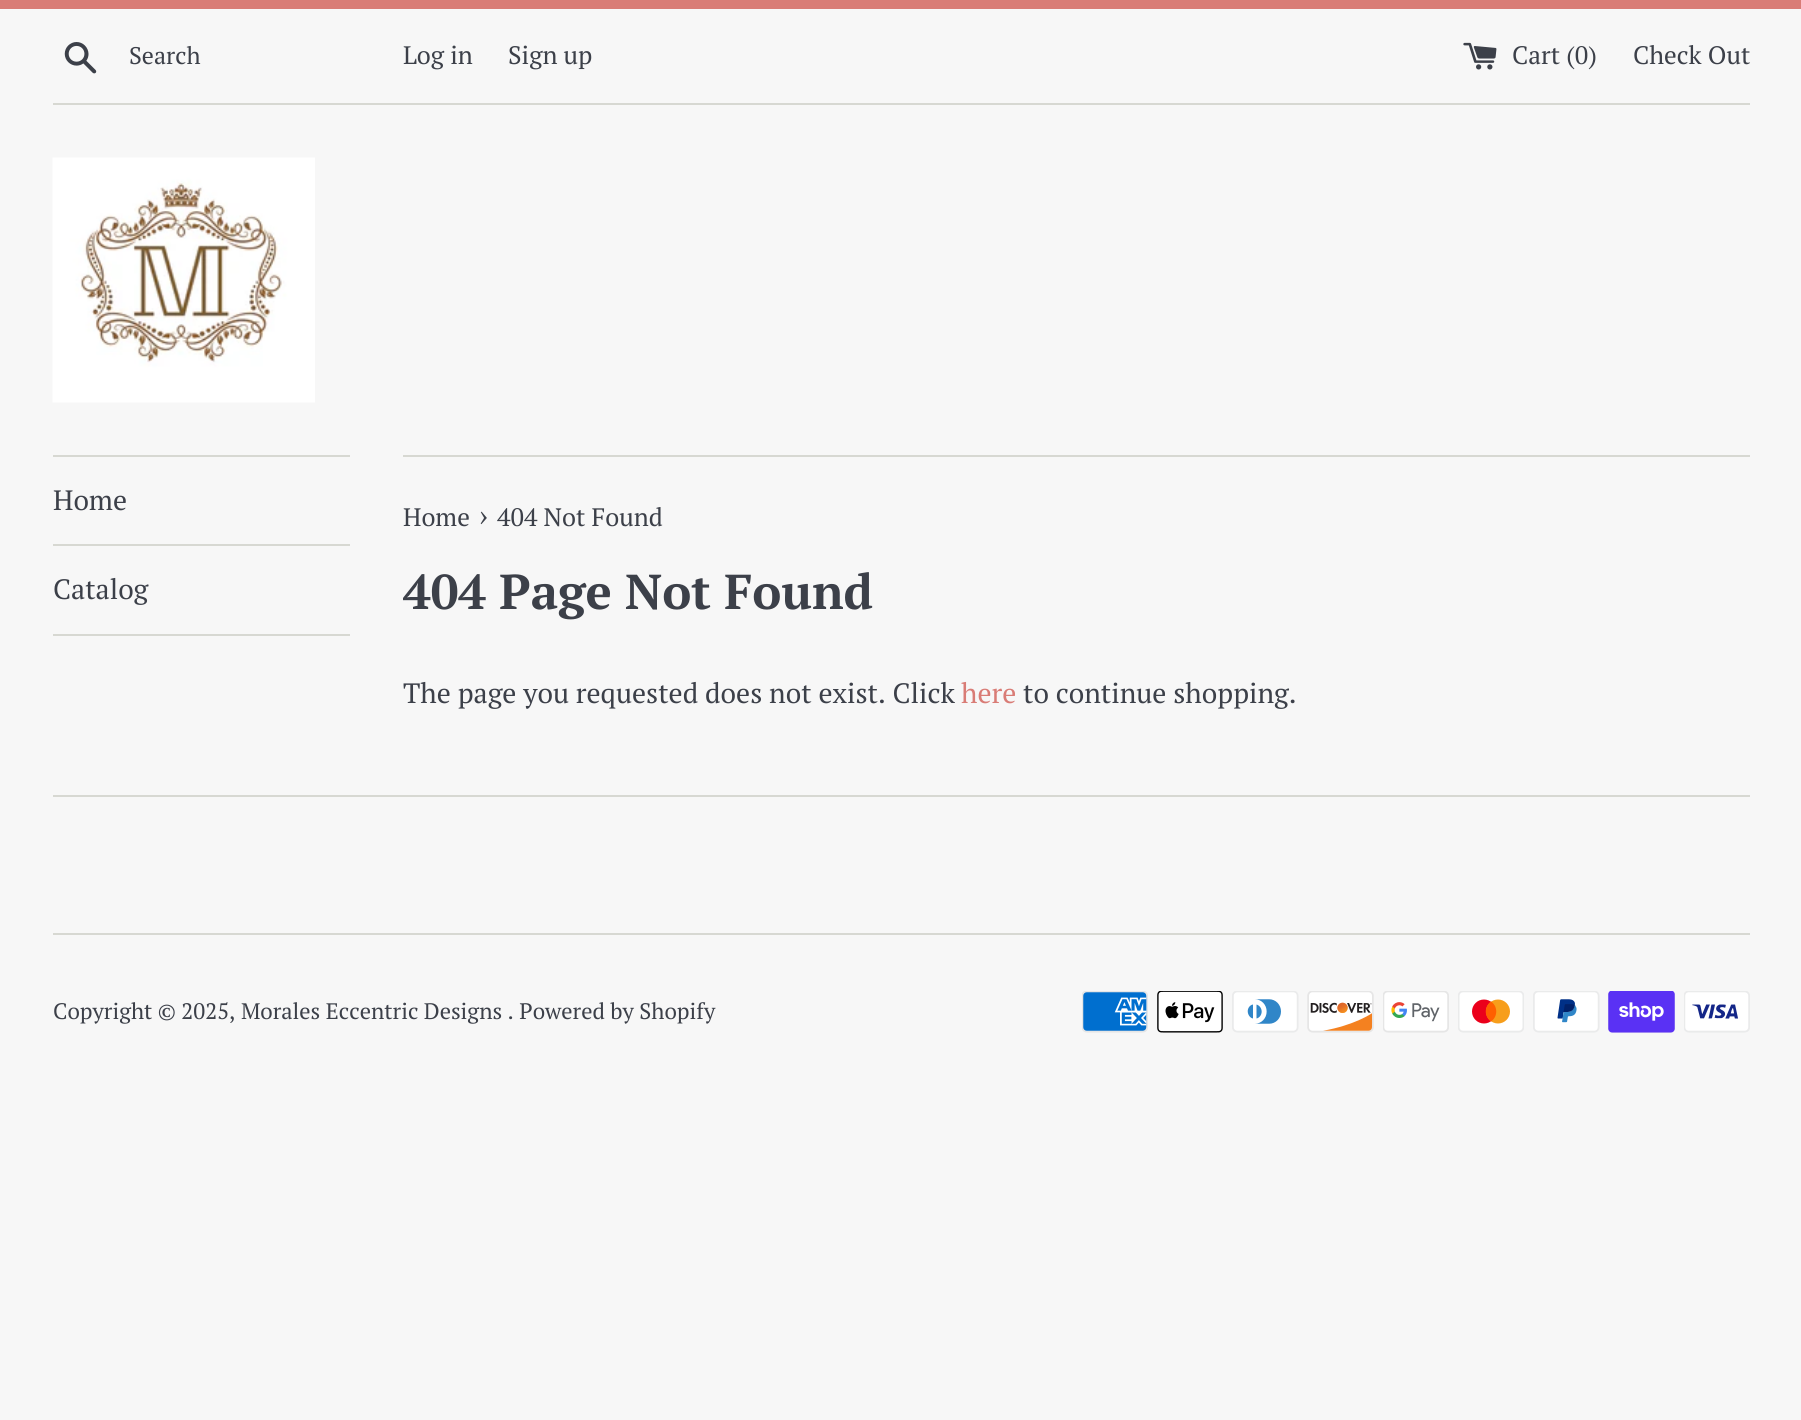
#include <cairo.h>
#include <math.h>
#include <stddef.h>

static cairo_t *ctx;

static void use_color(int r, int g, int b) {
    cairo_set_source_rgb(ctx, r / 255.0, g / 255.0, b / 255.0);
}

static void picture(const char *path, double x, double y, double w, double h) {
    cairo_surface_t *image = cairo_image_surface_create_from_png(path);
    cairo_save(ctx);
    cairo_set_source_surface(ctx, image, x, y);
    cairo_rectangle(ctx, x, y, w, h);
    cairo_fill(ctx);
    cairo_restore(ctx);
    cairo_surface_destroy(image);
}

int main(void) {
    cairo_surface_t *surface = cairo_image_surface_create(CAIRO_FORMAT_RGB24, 1801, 1420);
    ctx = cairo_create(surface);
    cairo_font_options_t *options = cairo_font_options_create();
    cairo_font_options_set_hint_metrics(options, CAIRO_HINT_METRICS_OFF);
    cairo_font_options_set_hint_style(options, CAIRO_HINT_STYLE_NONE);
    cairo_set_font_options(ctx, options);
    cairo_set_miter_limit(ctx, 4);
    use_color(247, 247, 247);
    cairo_paint(ctx);
    use_color(217, 124, 118);
    cairo_rectangle(ctx, 0, 0, 1801, 9);
    cairo_fill(ctx);
    picture("img1.png", 64, 42, 33, 32);
    cairo_select_font_face(ctx, "PT Serif", CAIRO_FONT_SLANT_NORMAL, CAIRO_FONT_WEIGHT_NORMAL);
    cairo_set_font_size(ctx, 24);
    use_color(60, 64, 73);
    cairo_move_to(ctx, 129, 64);
    cairo_show_text(ctx, "Search");
    cairo_set_font_size(ctx, 25.25);
    cairo_move_to(ctx, 403, 64);
    cairo_show_text(ctx, "Log in");
    cairo_move_to(ctx, 508, 64);
    cairo_show_text(ctx, "Sign up");
    picture("img2.png", 1463, 42, 34, 28);
    cairo_move_to(ctx, 1512, 64);
    cairo_show_text(ctx, "Cart (0)");
    cairo_move_to(ctx, 1633, 64);
    cairo_show_text(ctx, "Check Out");
    use_color(215, 216, 210);
    cairo_rectangle(ctx, 53, 103, 1697, 2);
    cairo_fill(ctx);
    picture("img3.png", 52, 157, 263, 246);
    cairo_rectangle(ctx, 53, 455, 297, 2);
    cairo_fill(ctx);
    cairo_rectangle(ctx, 53, 544, 297, 2);
    cairo_fill(ctx);
    cairo_set_font_size(ctx, 28);
    use_color(60, 64, 73);
    cairo_move_to(ctx, 53, 510);
    cairo_show_text(ctx, "Home");
    use_color(215, 216, 210);
    cairo_rectangle(ctx, 53, 634, 297, 2);
    cairo_fill(ctx);
    use_color(60, 64, 73);
    cairo_move_to(ctx, 53, 599);
    cairo_show_text(ctx, "Catalog");
    use_color(215, 216, 210);
    cairo_rectangle(ctx, 403, 455, 1347, 2);
    cairo_fill(ctx);
    cairo_set_font_size(ctx, 25.25);
    use_color(60, 64, 73);
    cairo_move_to(ctx, 403, 526);
    cairo_show_text(ctx, "Home");
    cairo_set_font_size(ctx, 31);
    cairo_move_to(ctx, 479, 526);
    cairo_show_text(ctx, "›");
    cairo_set_font_size(ctx, 25.25);
    cairo_move_to(ctx, 497, 526);
    cairo_show_text(ctx, "404 Not Found");
    cairo_select_font_face(ctx, "PT Serif", CAIRO_FONT_SLANT_NORMAL, CAIRO_FONT_WEIGHT_BOLD);
    cairo_set_font_size(ctx, 49);
    cairo_move_to(ctx, 403, 609);
    cairo_show_text(ctx, "404 Page Not Found");
    cairo_select_font_face(ctx, "PT Serif", CAIRO_FONT_SLANT_NORMAL, CAIRO_FONT_WEIGHT_NORMAL);
    cairo_set_font_size(ctx, 28);
    cairo_move_to(ctx, 403, 703);
    cairo_show_text(ctx, "The page you requested does not exist. Click");
    use_color(217, 124, 118);
    cairo_move_to(ctx, 961, 703);
    cairo_show_text(ctx, "here");
    use_color(60, 64, 73);
    cairo_move_to(ctx, 1023, 703);
    cairo_show_text(ctx, "to continue shopping.");
    use_color(215, 216, 210);
    cairo_rectangle(ctx, 53, 795, 1697, 2);
    cairo_fill(ctx);
    cairo_rectangle(ctx, 53, 933, 1697, 2);
    cairo_fill(ctx);
    cairo_set_font_size(ctx, 22.4);
    use_color(60, 64, 73);
    cairo_move_to(ctx, 53, 1019);
    cairo_show_text(ctx, "Copyright © 2025, Morales Eccentric Designs . Powered by Shopify");
    picture("img4.png", 1082, 991, 66, 42);
    picture("img5.png", 1157, 991, 66, 42);
    picture("img6.png", 1232, 991, 67, 42);
    picture("img7.png", 1307, 991, 67, 42);
    picture("img8.png", 1383, 991, 66, 42);
    picture("img9.png", 1458, 991, 66, 42);
    picture("img10.png", 1533, 991, 67, 42);
    picture("img11.png", 1608, 991, 67, 42);
    picture("img12.png", 1684, 991, 66, 42);
    cairo_surface_write_to_png(surface, "result.png");
    cairo_font_options_destroy(options);
    cairo_destroy(ctx);
    cairo_surface_destroy(surface);
    return 0;
}
